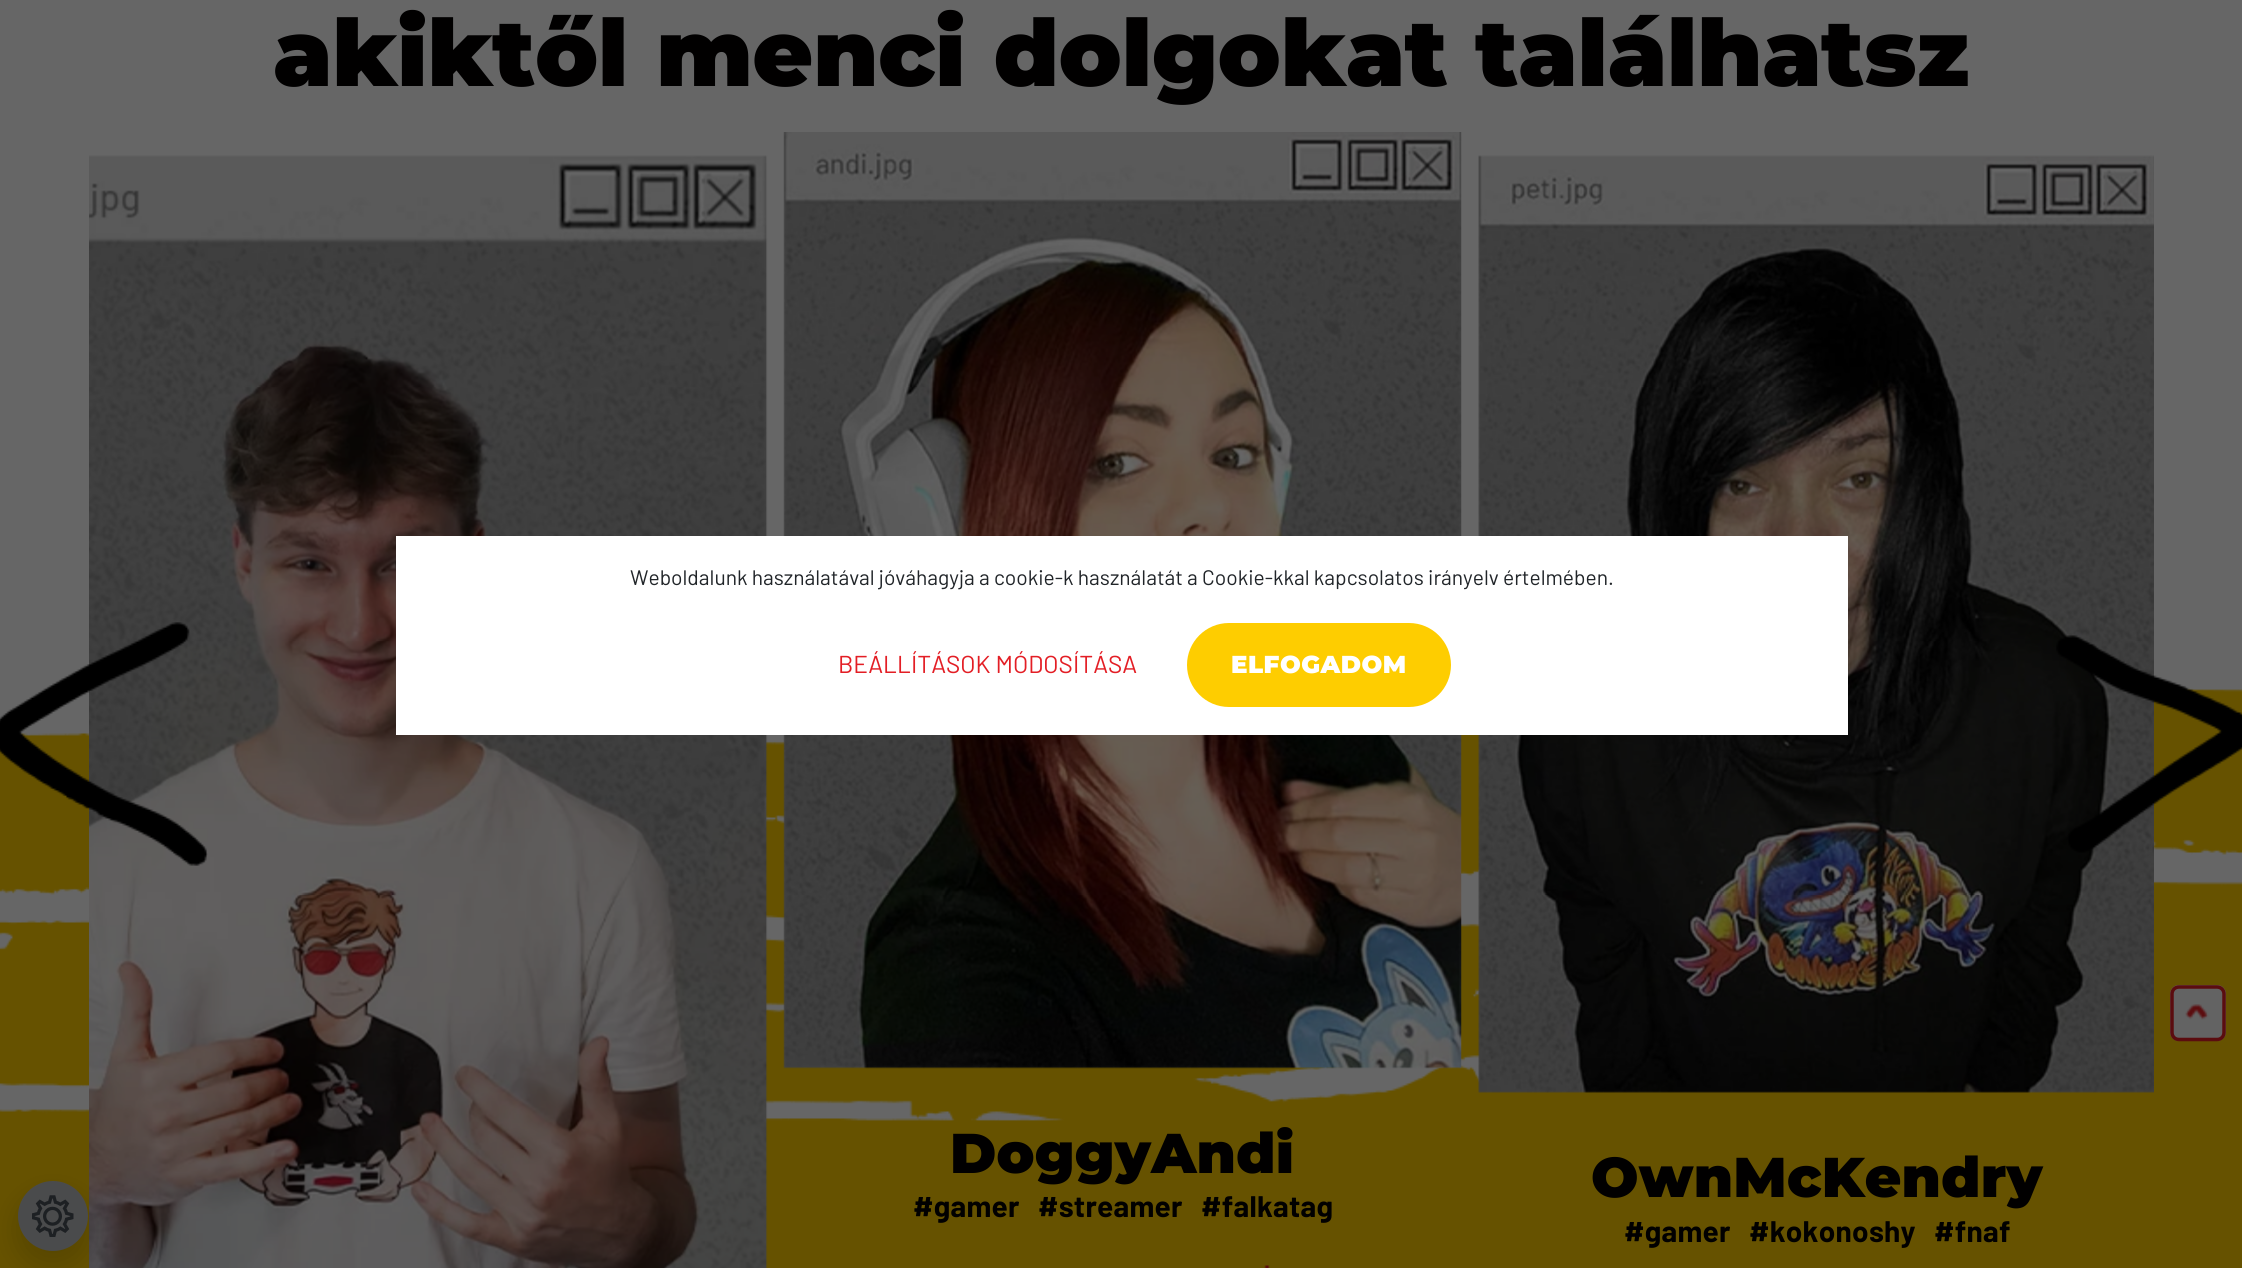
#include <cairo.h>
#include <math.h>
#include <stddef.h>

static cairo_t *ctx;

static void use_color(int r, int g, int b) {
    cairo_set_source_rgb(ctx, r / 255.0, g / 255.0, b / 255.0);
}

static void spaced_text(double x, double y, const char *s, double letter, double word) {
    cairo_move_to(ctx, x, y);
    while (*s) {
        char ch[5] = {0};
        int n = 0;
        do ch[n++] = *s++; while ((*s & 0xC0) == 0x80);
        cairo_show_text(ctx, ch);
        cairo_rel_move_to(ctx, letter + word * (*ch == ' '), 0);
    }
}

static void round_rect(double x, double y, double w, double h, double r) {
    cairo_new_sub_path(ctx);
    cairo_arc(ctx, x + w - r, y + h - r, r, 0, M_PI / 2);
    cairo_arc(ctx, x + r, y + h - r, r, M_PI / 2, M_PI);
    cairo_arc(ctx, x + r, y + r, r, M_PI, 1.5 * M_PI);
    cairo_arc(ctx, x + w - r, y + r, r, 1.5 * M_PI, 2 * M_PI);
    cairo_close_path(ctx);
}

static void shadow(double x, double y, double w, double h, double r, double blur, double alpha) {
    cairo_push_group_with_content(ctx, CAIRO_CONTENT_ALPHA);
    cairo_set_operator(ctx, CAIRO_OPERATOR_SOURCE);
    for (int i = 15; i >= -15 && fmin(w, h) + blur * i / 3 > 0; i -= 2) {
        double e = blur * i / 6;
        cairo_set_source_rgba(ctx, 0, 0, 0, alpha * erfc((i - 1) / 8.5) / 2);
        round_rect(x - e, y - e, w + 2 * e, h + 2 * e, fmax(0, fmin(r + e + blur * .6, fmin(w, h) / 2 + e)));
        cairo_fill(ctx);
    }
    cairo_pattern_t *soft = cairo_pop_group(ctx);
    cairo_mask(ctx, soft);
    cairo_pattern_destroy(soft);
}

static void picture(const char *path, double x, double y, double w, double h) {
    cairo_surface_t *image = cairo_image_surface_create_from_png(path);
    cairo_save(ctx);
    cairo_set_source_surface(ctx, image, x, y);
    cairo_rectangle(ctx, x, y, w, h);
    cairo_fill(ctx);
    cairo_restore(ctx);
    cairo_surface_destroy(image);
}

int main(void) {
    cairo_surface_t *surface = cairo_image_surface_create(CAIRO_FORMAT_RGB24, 2242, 1268);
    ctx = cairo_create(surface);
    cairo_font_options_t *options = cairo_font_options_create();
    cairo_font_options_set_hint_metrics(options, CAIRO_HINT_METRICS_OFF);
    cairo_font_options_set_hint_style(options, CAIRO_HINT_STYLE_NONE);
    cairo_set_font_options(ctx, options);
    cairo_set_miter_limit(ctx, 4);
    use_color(102, 102, 102);
    cairo_paint(ctx);
    picture("img2.png", 0, 687, 2242, 581);
    picture("img5.png", 89, 155, 679, 1113);
    use_color(0, 0, 0);
    shadow(18, 1195, 70, 70, 35, 14, 0.15);
    use_color(74, 75, 76);
    cairo_arc(ctx, 53, 1216, 35, 0, 2 * M_PI);
    cairo_fill(ctx);
    picture("img1.png", 32, 1195, 42, 42);
    cairo_select_font_face(ctx, "Montserrat Black", CAIRO_FONT_SLANT_NORMAL, CAIRO_FONT_WEIGHT_NORMAL);
    cairo_set_font_size(ctx, 92.75);
    use_color(1, 0, 0);
    cairo_move_to(ctx, 273, 86);
    cairo_show_text(ctx, "akiktől menci dolgokat találhatsz");
    picture("img3.png", 0, 622, 208, 244);
    picture("img8.png", 1478, 155, 676, 938);
    picture("img4.png", 2056, 635, 186, 218);
    picture("img6.png", 783, 132, 679, 937);
    cairo_set_font_size(ctx, 56);
    spaced_text(950, 1173, "DoggyAndi", 0.25, 0);
    cairo_select_font_face(ctx, "Barlow", CAIRO_FONT_SLANT_NORMAL, CAIRO_FONT_WEIGHT_BOLD);
    cairo_set_font_size(ctx, 29.75);
    spaced_text(913, 1217, "#gamer", 0.25, 0);
    spaced_text(1038, 1217, "#streamer", 0.25, 0);
    spaced_text(1201, 1217, "#falkatag", 0.25, 0);
    picture("img7.png", 1264, 1265, 6, 3);
    cairo_select_font_face(ctx, "Montserrat Black", CAIRO_FONT_SLANT_NORMAL, CAIRO_FONT_WEIGHT_NORMAL);
    cairo_set_font_size(ctx, 56);
    spaced_text(1591, 1197, "OwnMcKendry", 0.25, 0);
    cairo_select_font_face(ctx, "Barlow", CAIRO_FONT_SLANT_NORMAL, CAIRO_FONT_WEIGHT_BOLD);
    cairo_set_font_size(ctx, 29.75);
    spaced_text(1624, 1242, "#gamer", 0.25, 0);
    spaced_text(1749, 1242, "#kokonoshy", 0.25, 0);
    spaced_text(1934, 1242, "#fnaf", 0.25, 0);
    use_color(99, 99, 99);
    cairo_new_path(ctx);
    cairo_move_to(ctx, 2217, 1041);
    cairo_line_to(ctx, 2179, 1041);
    cairo_curve_to(ctx, 2174, 1041, 2170, 1037, 2170, 1032);
    cairo_line_to(ctx, 2170, 994);
    cairo_curve_to(ctx, 2170, 989, 2174, 985, 2179, 985);
    cairo_line_to(ctx, 2217, 985);
    cairo_curve_to(ctx, 2222, 985, 2226, 989, 2226, 994);
    cairo_line_to(ctx, 2226, 1032);
    cairo_curve_to(ctx, 2226, 1037, 2222, 1041, 2217, 1041);
    cairo_close_path(ctx);
    cairo_fill(ctx);
    picture("img9.png", 2185, 1004, 24, 16);
    cairo_new_path(ctx);
    cairo_move_to(ctx, 2217, 1039.5);
    cairo_line_to(ctx, 2179, 1039.5);
    cairo_curve_to(ctx, 2175, 1039.5, 2172, 1036.5, 2172, 1032.5);
    cairo_line_to(ctx, 2172, 994);
    cairo_curve_to(ctx, 2172, 990, 2175, 987, 2179, 987);
    cairo_line_to(ctx, 2217, 987);
    cairo_curve_to(ctx, 2221, 987, 2224, 990, 2224, 994);
    cairo_line_to(ctx, 2224, 1032.5);
    cairo_curve_to(ctx, 2224, 1036.5, 2221, 1039.5, 2217, 1039.5);
    cairo_close_path(ctx);
    use_color(91, 12, 15);
    cairo_set_line_width(ctx, 3.5);
    cairo_stroke(ctx);
    use_color(255, 255, 255);
    cairo_rectangle(ctx, 396, 536, 1452, 199);
    cairo_fill(ctx);
    cairo_select_font_face(ctx, "Barlow", CAIRO_FONT_SLANT_NORMAL, CAIRO_FONT_WEIGHT_NORMAL);
    cairo_set_font_size(ctx, 21);
    use_color(33, 37, 41);
    cairo_move_to(ctx, 630, 585);
    cairo_show_text(ctx, "Weboldalunk használatával jóváhagyja a cookie-k használatát a Cookie-kkal kapcsolatos irányelv értelmében.");
    cairo_set_font_size(ctx, 24.5);
    use_color(227, 30, 37);
    cairo_move_to(ctx, 838, 673);
    cairo_show_text(ctx, "BEÁLLÍTÁSOK MÓDOSÍTÁSA");
    use_color(254, 205, 0);
    round_rect(1187, 623, 264, 84, 42);
    cairo_fill(ctx);
    cairo_select_font_face(ctx, "Montserrat Black", CAIRO_FONT_SLANT_NORMAL, CAIRO_FONT_WEIGHT_NORMAL);
    use_color(255, 255, 255);
    spaced_text(1231, 673, "ELFOGADOM", 0.5, 0);
    cairo_surface_write_to_png(surface, "result.png");
    cairo_font_options_destroy(options);
    cairo_destroy(ctx);
    cairo_surface_destroy(surface);
    return 0;
}
